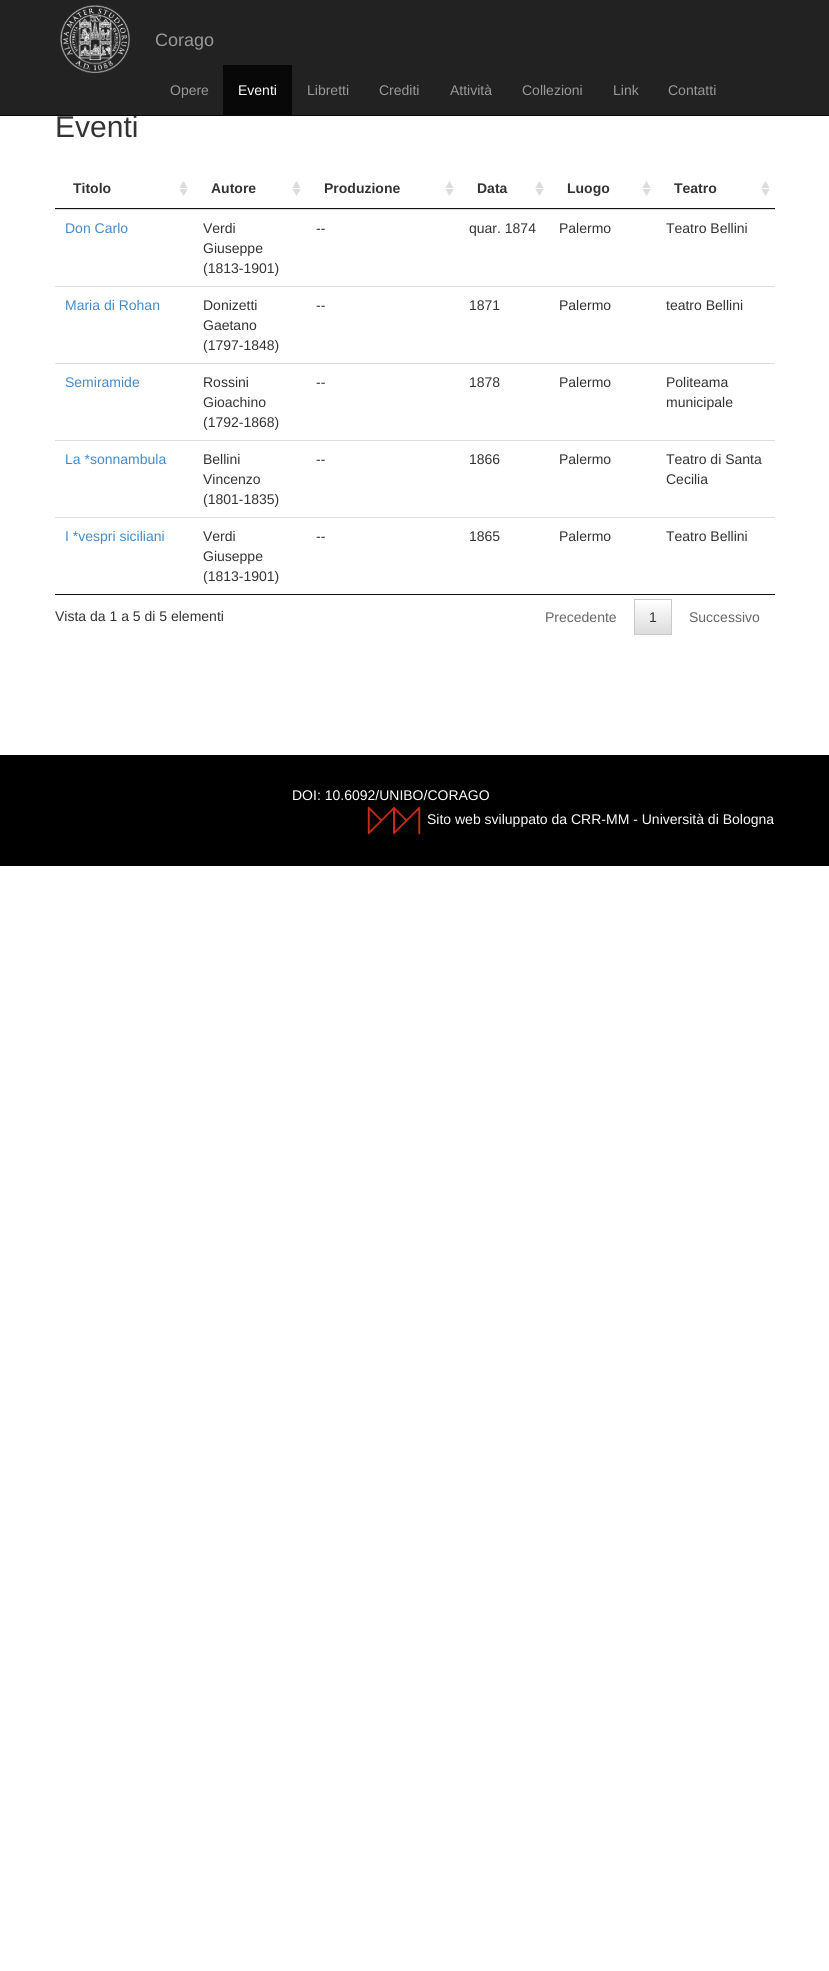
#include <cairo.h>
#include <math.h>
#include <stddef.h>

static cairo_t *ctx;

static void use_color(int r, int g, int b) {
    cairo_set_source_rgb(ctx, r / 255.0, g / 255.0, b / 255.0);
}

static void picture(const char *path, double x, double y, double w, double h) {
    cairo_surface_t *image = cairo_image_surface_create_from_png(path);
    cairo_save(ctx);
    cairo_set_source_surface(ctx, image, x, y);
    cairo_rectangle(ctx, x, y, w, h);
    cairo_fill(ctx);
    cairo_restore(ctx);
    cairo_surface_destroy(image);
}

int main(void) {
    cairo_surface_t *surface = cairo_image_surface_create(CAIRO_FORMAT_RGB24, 829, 1971);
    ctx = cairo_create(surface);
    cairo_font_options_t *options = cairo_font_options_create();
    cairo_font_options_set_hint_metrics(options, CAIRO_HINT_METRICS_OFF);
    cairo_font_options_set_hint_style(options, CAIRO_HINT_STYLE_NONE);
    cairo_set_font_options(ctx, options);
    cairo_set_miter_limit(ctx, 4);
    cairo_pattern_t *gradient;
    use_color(255, 255, 255);
    cairo_paint(ctx);
    use_color(34, 34, 34);
    cairo_rectangle(ctx, 0, 0, 829, 115);
    cairo_fill(ctx);
    cairo_select_font_face(ctx, "Liberation Sans", CAIRO_FONT_SLANT_NORMAL, CAIRO_FONT_WEIGHT_NORMAL);
    cairo_set_font_size(ctx, 30);
    use_color(51, 51, 51);
    cairo_move_to(ctx, 55, 137);
    cairo_show_text(ctx, "Eventi");
    use_color(8, 8, 8);
    cairo_rectangle(ctx, 0, 115, 829, 1);
    cairo_fill(ctx);
    picture("img1.png", 60, 5, 70, 69);
    cairo_set_font_size(ctx, 18);
    use_color(153, 153, 153);
    cairo_move_to(ctx, 155, 46);
    cairo_show_text(ctx, "Corago");
    cairo_set_font_size(ctx, 14);
    cairo_move_to(ctx, 170, 95);
    cairo_show_text(ctx, "Opere");
    use_color(8, 8, 8);
    cairo_rectangle(ctx, 223, 65, 69, 50);
    cairo_fill(ctx);
    use_color(255, 255, 255);
    cairo_move_to(ctx, 238, 95);
    cairo_show_text(ctx, "Eventi");
    use_color(153, 153, 153);
    cairo_move_to(ctx, 307, 95);
    cairo_show_text(ctx, "Libretti");
    cairo_move_to(ctx, 379, 95);
    cairo_show_text(ctx, "Crediti");
    cairo_move_to(ctx, 450, 95);
    cairo_show_text(ctx, "Attività");
    cairo_move_to(ctx, 522, 95);
    cairo_show_text(ctx, "Collezioni");
    cairo_move_to(ctx, 613, 95);
    cairo_show_text(ctx, "Link");
    cairo_move_to(ctx, 668, 95);
    cairo_show_text(ctx, "Contatti");
    use_color(17, 17, 17);
    cairo_rectangle(ctx, 55, 594, 720, 1);
    cairo_fill(ctx);
    picture("img2.png", 179, 181, 9, 15);
    cairo_rectangle(ctx, 55, 208, 720, 1);
    cairo_fill(ctx);
    cairo_select_font_face(ctx, "Liberation Sans", CAIRO_FONT_SLANT_NORMAL, CAIRO_FONT_WEIGHT_BOLD);
    use_color(51, 51, 51);
    cairo_move_to(ctx, 73, 193);
    cairo_show_text(ctx, "Titolo");
    picture("img2.png", 292, 181, 9, 15);
    cairo_move_to(ctx, 211, 193);
    cairo_show_text(ctx, "Autore");
    picture("img2.png", 445, 181, 9, 15);
    cairo_move_to(ctx, 324, 193);
    cairo_show_text(ctx, "Produzione");
    picture("img2.png", 535, 181, 9, 15);
    cairo_move_to(ctx, 477, 193);
    cairo_show_text(ctx, "Data");
    picture("img2.png", 642, 181, 9, 15);
    cairo_move_to(ctx, 567, 193);
    cairo_show_text(ctx, "Luogo");
    picture("img2.png", 761, 181, 9, 15);
    cairo_move_to(ctx, 674, 193);
    cairo_show_text(ctx, "Teatro");
    use_color(221, 221, 221);
    cairo_rectangle(ctx, 55, 209, 720, 1);
    cairo_fill(ctx);
    cairo_select_font_face(ctx, "Liberation Sans", CAIRO_FONT_SLANT_NORMAL, CAIRO_FONT_WEIGHT_NORMAL);
    use_color(66, 139, 202);
    cairo_move_to(ctx, 65, 233);
    cairo_show_text(ctx, "Don Carlo");
    use_color(51, 51, 51);
    cairo_move_to(ctx, 203, 233);
    cairo_show_text(ctx, "Verdi");
    cairo_move_to(ctx, 203, 253);
    cairo_show_text(ctx, "Giuseppe");
    cairo_move_to(ctx, 203, 273);
    cairo_show_text(ctx, "(1813-1901)");
    cairo_move_to(ctx, 316, 233);
    cairo_show_text(ctx, "--");
    cairo_move_to(ctx, 469, 233);
    cairo_show_text(ctx, "quar. 1874");
    cairo_move_to(ctx, 559, 233);
    cairo_show_text(ctx, "Palermo");
    cairo_move_to(ctx, 666, 233);
    cairo_show_text(ctx, "Teatro Bellini");
    use_color(221, 221, 221);
    cairo_rectangle(ctx, 55, 286, 720, 1);
    cairo_fill(ctx);
    use_color(66, 139, 202);
    cairo_move_to(ctx, 65, 310);
    cairo_show_text(ctx, "Maria di Rohan");
    use_color(51, 51, 51);
    cairo_move_to(ctx, 203, 310);
    cairo_show_text(ctx, "Donizetti");
    cairo_move_to(ctx, 203, 330);
    cairo_show_text(ctx, "Gaetano");
    cairo_move_to(ctx, 203, 350);
    cairo_show_text(ctx, "(1797-1848)");
    cairo_move_to(ctx, 316, 310);
    cairo_show_text(ctx, "--");
    cairo_move_to(ctx, 469, 310);
    cairo_show_text(ctx, "1871");
    cairo_move_to(ctx, 559, 310);
    cairo_show_text(ctx, "Palermo");
    cairo_move_to(ctx, 666, 310);
    cairo_show_text(ctx, "teatro Bellini");
    use_color(221, 221, 221);
    cairo_rectangle(ctx, 55, 363, 720, 1);
    cairo_fill(ctx);
    use_color(66, 139, 202);
    cairo_move_to(ctx, 65, 387);
    cairo_show_text(ctx, "Semiramide");
    use_color(51, 51, 51);
    cairo_move_to(ctx, 203, 387);
    cairo_show_text(ctx, "Rossini");
    cairo_move_to(ctx, 203, 407);
    cairo_show_text(ctx, "Gioachino");
    cairo_move_to(ctx, 203, 427);
    cairo_show_text(ctx, "(1792-1868)");
    cairo_move_to(ctx, 316, 387);
    cairo_show_text(ctx, "--");
    cairo_move_to(ctx, 469, 387);
    cairo_show_text(ctx, "1878");
    cairo_move_to(ctx, 559, 387);
    cairo_show_text(ctx, "Palermo");
    cairo_move_to(ctx, 666, 387);
    cairo_show_text(ctx, "Politeama");
    cairo_move_to(ctx, 666, 407);
    cairo_show_text(ctx, "municipale");
    use_color(221, 221, 221);
    cairo_rectangle(ctx, 55, 440, 720, 1);
    cairo_fill(ctx);
    use_color(66, 139, 202);
    cairo_move_to(ctx, 65, 464);
    cairo_show_text(ctx, "La *sonnambula");
    use_color(51, 51, 51);
    cairo_move_to(ctx, 203, 464);
    cairo_show_text(ctx, "Bellini");
    cairo_move_to(ctx, 203, 484);
    cairo_show_text(ctx, "Vincenzo");
    cairo_move_to(ctx, 203, 504);
    cairo_show_text(ctx, "(1801-1835)");
    cairo_move_to(ctx, 316, 464);
    cairo_show_text(ctx, "--");
    cairo_move_to(ctx, 469, 464);
    cairo_show_text(ctx, "1866");
    cairo_move_to(ctx, 559, 464);
    cairo_show_text(ctx, "Palermo");
    cairo_move_to(ctx, 666, 464);
    cairo_show_text(ctx, "Teatro di Santa");
    cairo_move_to(ctx, 666, 484);
    cairo_show_text(ctx, "Cecilia");
    use_color(221, 221, 221);
    cairo_rectangle(ctx, 55, 517, 720, 1);
    cairo_fill(ctx);
    use_color(66, 139, 202);
    cairo_move_to(ctx, 65, 541);
    cairo_show_text(ctx, "I *vespri siciliani");
    use_color(51, 51, 51);
    cairo_move_to(ctx, 203, 541);
    cairo_show_text(ctx, "Verdi");
    cairo_move_to(ctx, 203, 561);
    cairo_show_text(ctx, "Giuseppe");
    cairo_move_to(ctx, 203, 581);
    cairo_show_text(ctx, "(1813-1901)");
    cairo_move_to(ctx, 316, 541);
    cairo_show_text(ctx, "--");
    cairo_move_to(ctx, 469, 541);
    cairo_show_text(ctx, "1865");
    cairo_move_to(ctx, 559, 541);
    cairo_show_text(ctx, "Palermo");
    cairo_move_to(ctx, 666, 541);
    cairo_show_text(ctx, "Teatro Bellini");
    cairo_move_to(ctx, 55, 621);
    cairo_show_text(ctx, "Vista da 1 a 5 di 5 elementi");
    use_color(102, 102, 102);
    cairo_move_to(ctx, 545, 622);
    cairo_show_text(ctx, "Precedente");
    gradient = cairo_pattern_create_linear(653, 600, 653, 634);
    cairo_pattern_add_color_stop_rgba(gradient, 0, 1, 1, 1, 1);
    cairo_pattern_add_color_stop_rgba(gradient, 1, 0.863, 0.863, 0.863, 1);
    cairo_set_source(ctx, gradient);
    cairo_pattern_destroy(gradient);
    cairo_rectangle(ctx, 635, 602, 36, 32);
    cairo_fill(ctx);
    cairo_rectangle(ctx, 634.5, 599.5, 37, 35);
    use_color(202, 202, 202);
    cairo_set_line_width(ctx, 1);
    cairo_stroke(ctx);
    use_color(51, 51, 51);
    cairo_move_to(ctx, 649, 622);
    cairo_show_text(ctx, "1");
    use_color(102, 102, 102);
    cairo_move_to(ctx, 689, 622);
    cairo_show_text(ctx, "Successivo");
    use_color(0, 0, 0);
    cairo_rectangle(ctx, 0, 755, 829, 111);
    cairo_fill(ctx);
    use_color(255, 255, 255);
    cairo_move_to(ctx, 292, 800);
    cairo_show_text(ctx, "DOI: 10.6092/UNIBO/CORAGO");
    picture("img3.png", 367, 806, 54, 29);
    cairo_move_to(ctx, 427, 824);
    cairo_show_text(ctx, "Sito web sviluppato da CRR-MM - Università di Bologna");
    cairo_surface_write_to_png(surface, "result.png");
    cairo_font_options_destroy(options);
    cairo_destroy(ctx);
    cairo_surface_destroy(surface);
    return 0;
}
